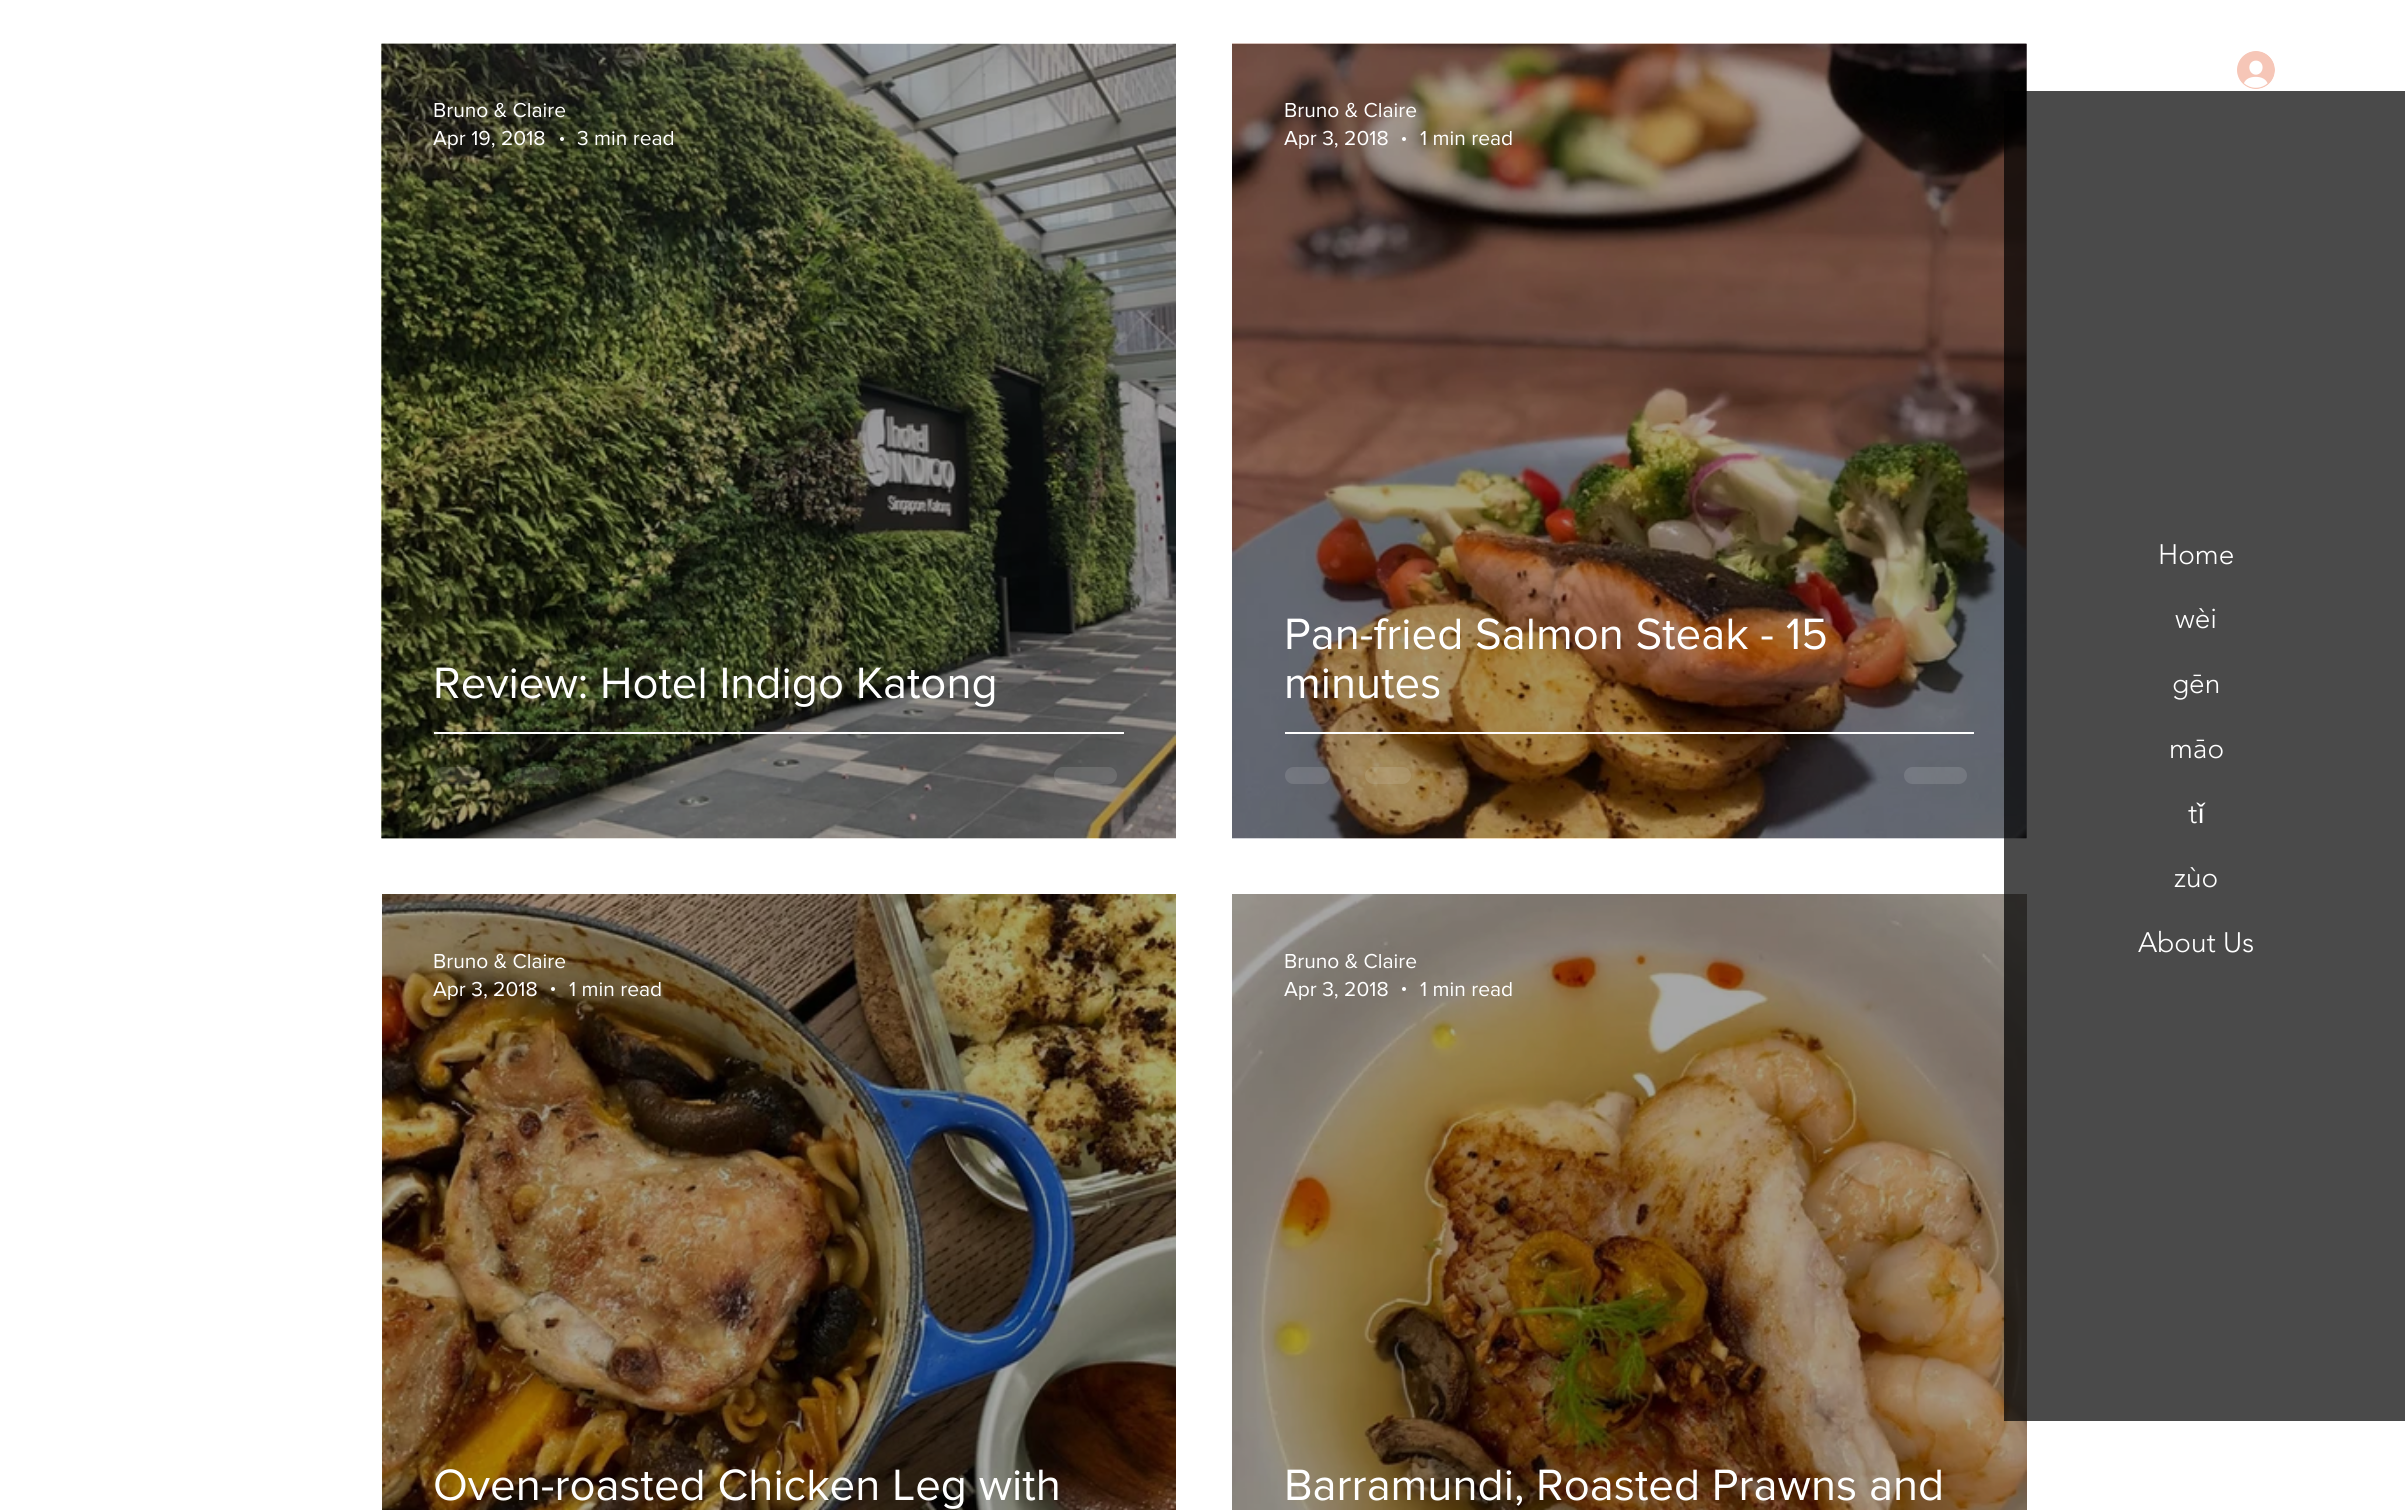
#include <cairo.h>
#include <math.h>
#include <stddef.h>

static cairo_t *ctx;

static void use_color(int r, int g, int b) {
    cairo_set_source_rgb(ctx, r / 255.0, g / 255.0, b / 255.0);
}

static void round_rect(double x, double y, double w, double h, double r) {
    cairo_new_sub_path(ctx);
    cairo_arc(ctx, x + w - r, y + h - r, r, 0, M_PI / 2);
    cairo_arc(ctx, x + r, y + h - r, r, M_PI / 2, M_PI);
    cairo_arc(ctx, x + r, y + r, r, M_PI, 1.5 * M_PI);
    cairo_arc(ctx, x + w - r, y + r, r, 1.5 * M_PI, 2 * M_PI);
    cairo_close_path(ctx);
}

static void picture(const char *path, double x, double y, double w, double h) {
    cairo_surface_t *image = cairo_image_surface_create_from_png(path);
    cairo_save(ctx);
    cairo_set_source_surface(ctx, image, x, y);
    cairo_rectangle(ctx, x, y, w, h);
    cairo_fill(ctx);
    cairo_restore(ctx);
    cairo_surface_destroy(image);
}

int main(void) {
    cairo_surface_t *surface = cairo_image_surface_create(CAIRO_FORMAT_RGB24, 2405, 1510);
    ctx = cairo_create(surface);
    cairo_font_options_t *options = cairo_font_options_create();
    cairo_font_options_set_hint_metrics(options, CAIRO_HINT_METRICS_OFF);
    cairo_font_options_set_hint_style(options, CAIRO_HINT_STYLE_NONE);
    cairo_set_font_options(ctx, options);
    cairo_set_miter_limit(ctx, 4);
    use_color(255, 255, 255);
    cairo_paint(ctx);
    picture("img1.png", 2237, 51, 38, 38);
    picture("img2.png", 381, 43, 795, 796);
    picture("img3.png", 381, 43, 795, 796);
    cairo_select_font_face(ctx, "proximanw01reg", CAIRO_FONT_SLANT_NORMAL, CAIRO_FONT_WEIGHT_NORMAL);
    cairo_set_font_size(ctx, 21);
    use_color(255, 255, 255);
    cairo_move_to(ctx, 433, 117);
    cairo_show_text(ctx, "Bruno & Claire");
    cairo_move_to(ctx, 433, 145);
    cairo_show_text(ctx, "Apr 19, 2018");
    cairo_new_path(ctx);
    cairo_arc(ctx, 562, 139, 2, 0, 2 * M_PI);
    cairo_fill(ctx);
    cairo_move_to(ctx, 577, 145);
    cairo_show_text(ctx, "3 min read");
    cairo_set_font_size(ctx, 45.5);
    cairo_move_to(ctx, 433, 698);
    cairo_show_text(ctx, "Review: Hotel Indigo Katong");
    cairo_rectangle(ctx, 434, 732, 690, 2);
    cairo_fill(ctx);
    cairo_set_source_rgba(ctx, 1, 1, 1, 0.12);
    round_rect(434, 767, 46, 17, 8.5);
    cairo_fill(ctx);
    round_rect(515, 767, 45, 17, 8.5);
    cairo_fill(ctx);
    round_rect(1054, 767, 63, 17, 8.5);
    cairo_fill(ctx);
    picture("img4.png", 1232, 43, 795, 796);
    picture("img5.png", 1232, 43, 795, 796);
    cairo_set_font_size(ctx, 21);
    use_color(255, 255, 255);
    cairo_move_to(ctx, 1284, 117);
    cairo_show_text(ctx, "Bruno & Claire");
    cairo_move_to(ctx, 1284, 145);
    cairo_show_text(ctx, "Apr 3, 2018");
    cairo_new_path(ctx);
    cairo_arc(ctx, 1404, 139, 2, 0, 2 * M_PI);
    cairo_fill(ctx);
    cairo_move_to(ctx, 1420, 145);
    cairo_show_text(ctx, "1 min read");
    cairo_set_font_size(ctx, 45.5);
    cairo_move_to(ctx, 1284, 649);
    cairo_show_text(ctx, "Pan-fried Salmon Steak - 15");
    cairo_move_to(ctx, 1284, 698);
    cairo_show_text(ctx, "minutes");
    cairo_rectangle(ctx, 1285, 732, 689, 2);
    cairo_fill(ctx);
    cairo_set_source_rgba(ctx, 1, 1, 1, 0.12);
    round_rect(1285, 767, 45, 17, 8.5);
    cairo_fill(ctx);
    round_rect(1365, 767, 46, 17, 8.5);
    cairo_fill(ctx);
    round_rect(1904, 767, 63, 17, 8.5);
    cairo_fill(ctx);
    picture("img6.png", 382, 894, 794, 616);
    cairo_set_font_size(ctx, 21);
    use_color(255, 255, 255);
    cairo_move_to(ctx, 433, 968);
    cairo_show_text(ctx, "Bruno & Claire");
    cairo_move_to(ctx, 433, 996);
    cairo_show_text(ctx, "Apr 3, 2018");
    cairo_new_path(ctx);
    cairo_arc(ctx, 553, 989, 2, 0, 2 * M_PI);
    cairo_fill(ctx);
    cairo_move_to(ctx, 569, 996);
    cairo_show_text(ctx, "1 min read");
    cairo_set_font_size(ctx, 45.5);
    cairo_move_to(ctx, 433, 1500);
    cairo_show_text(ctx, "Oven-roasted Chicken Leg with");
    picture("img7.png", 1232, 894, 795, 616);
    cairo_set_font_size(ctx, 21);
    cairo_move_to(ctx, 1284, 968);
    cairo_show_text(ctx, "Bruno & Claire");
    cairo_move_to(ctx, 1284, 996);
    cairo_show_text(ctx, "Apr 3, 2018");
    cairo_new_path(ctx);
    cairo_arc(ctx, 1404, 989, 2, 0, 2 * M_PI);
    cairo_fill(ctx);
    cairo_move_to(ctx, 1420, 996);
    cairo_show_text(ctx, "1 min read");
    cairo_set_font_size(ctx, 45.5);
    cairo_move_to(ctx, 1284, 1500);
    cairo_show_text(ctx, "Barramundi, Roasted Prawns and");
    cairo_set_source_rgba(ctx, 0, 0, 0, 0.71);
    cairo_rectangle(ctx, 2004, 91, 401, 1330);
    cairo_fill(ctx);
    cairo_select_font_face(ctx, "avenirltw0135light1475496 Light", CAIRO_FONT_SLANT_NORMAL, CAIRO_FONT_WEIGHT_NORMAL);
    cairo_set_font_size(ctx, 28);
    use_color(255, 255, 255);
    cairo_move_to(ctx, 2158, 564);
    cairo_show_text(ctx, "Home");
    cairo_move_to(ctx, 2175, 628);
    cairo_show_text(ctx, "wèi");
    cairo_move_to(ctx, 2172, 693);
    cairo_show_text(ctx, "gēn");
    cairo_move_to(ctx, 2169, 758);
    cairo_show_text(ctx, "māo");
    cairo_move_to(ctx, 2188, 823);
    cairo_show_text(ctx, "t");
    cairo_select_font_face(ctx, "Liberation Sans", CAIRO_FONT_SLANT_NORMAL, CAIRO_FONT_WEIGHT_NORMAL);
    cairo_move_to(ctx, 2198, 823);
    cairo_show_text(ctx, "ǐ");
    cairo_select_font_face(ctx, "avenirltw0135light1475496 Light", CAIRO_FONT_SLANT_NORMAL, CAIRO_FONT_WEIGHT_NORMAL);
    cairo_move_to(ctx, 2174, 887);
    cairo_show_text(ctx, "zùo");
    cairo_move_to(ctx, 2138, 952);
    cairo_show_text(ctx, "About Us");
    cairo_surface_write_to_png(surface, "result.png");
    cairo_font_options_destroy(options);
    cairo_destroy(ctx);
    cairo_surface_destroy(surface);
    return 0;
}
